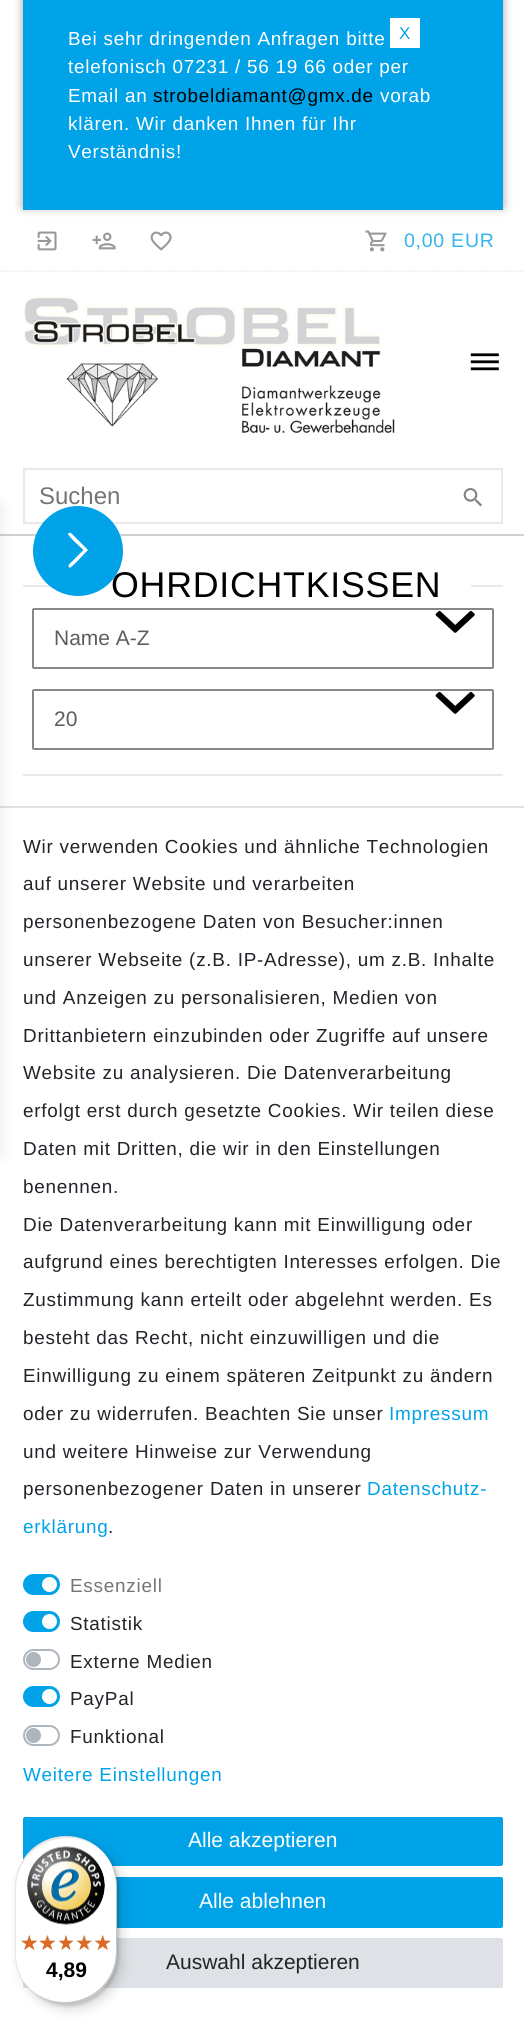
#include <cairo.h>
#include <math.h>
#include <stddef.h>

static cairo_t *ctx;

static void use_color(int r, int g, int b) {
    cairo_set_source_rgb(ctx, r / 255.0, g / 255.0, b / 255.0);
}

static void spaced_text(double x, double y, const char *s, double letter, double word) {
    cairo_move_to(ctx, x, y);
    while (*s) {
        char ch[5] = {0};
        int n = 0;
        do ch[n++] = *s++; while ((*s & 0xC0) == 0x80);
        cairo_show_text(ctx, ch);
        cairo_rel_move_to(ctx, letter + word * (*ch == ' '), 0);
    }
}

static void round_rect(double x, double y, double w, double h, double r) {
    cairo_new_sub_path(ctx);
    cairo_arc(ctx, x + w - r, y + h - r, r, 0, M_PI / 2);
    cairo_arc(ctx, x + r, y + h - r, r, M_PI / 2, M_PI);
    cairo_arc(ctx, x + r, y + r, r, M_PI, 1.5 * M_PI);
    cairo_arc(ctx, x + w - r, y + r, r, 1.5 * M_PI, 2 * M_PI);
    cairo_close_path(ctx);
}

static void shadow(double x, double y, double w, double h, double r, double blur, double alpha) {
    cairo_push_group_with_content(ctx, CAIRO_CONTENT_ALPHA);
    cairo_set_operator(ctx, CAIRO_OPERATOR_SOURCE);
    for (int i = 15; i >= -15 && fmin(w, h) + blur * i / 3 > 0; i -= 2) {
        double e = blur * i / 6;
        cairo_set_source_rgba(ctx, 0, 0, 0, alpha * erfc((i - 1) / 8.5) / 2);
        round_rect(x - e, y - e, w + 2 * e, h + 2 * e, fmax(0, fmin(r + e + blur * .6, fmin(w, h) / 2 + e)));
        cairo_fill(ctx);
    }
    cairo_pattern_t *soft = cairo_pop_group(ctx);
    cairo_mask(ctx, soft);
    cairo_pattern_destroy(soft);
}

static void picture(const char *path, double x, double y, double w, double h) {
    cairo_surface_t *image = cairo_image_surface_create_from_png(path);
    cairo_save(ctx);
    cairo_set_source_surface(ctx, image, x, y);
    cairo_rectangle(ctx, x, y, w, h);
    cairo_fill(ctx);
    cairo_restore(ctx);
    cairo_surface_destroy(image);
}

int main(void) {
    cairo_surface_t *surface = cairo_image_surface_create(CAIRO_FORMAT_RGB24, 524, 2019);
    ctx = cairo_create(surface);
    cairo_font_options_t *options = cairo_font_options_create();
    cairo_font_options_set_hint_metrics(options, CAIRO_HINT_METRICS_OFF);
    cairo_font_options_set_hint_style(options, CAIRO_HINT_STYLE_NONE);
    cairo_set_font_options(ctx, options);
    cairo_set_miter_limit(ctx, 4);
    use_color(255, 255, 255);
    cairo_paint(ctx);
    use_color(163, 163, 163);
    shadow(23, -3, 480, 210, 0, 5, 1);
    use_color(0, 162, 232);
    cairo_rectangle(ctx, 23, 0, 480, 210);
    cairo_fill(ctx);
    use_color(255, 255, 255);
    cairo_rectangle(ctx, 390, 18, 30, 30);
    cairo_fill(ctx);
    cairo_select_font_face(ctx, "Liberation Sans", CAIRO_FONT_SLANT_NORMAL, CAIRO_FONT_WEIGHT_NORMAL);
    cairo_set_font_size(ctx, 17);
    use_color(0, 162, 232);
    spaced_text(399, 39, "X", 0.75, 0);
    cairo_set_font_size(ctx, 18.9);
    use_color(255, 255, 255);
    spaced_text(68, 45, "Bei sehr dringenden Anfragen bitte", 0.75, 0);
    spaced_text(68, 73, "telefonisch 07231 / 56 19 66 oder per", 0.75, 0);
    spaced_text(68, 102, "Email an", 0.75, 0);
    use_color(0, 0, 0);
    spaced_text(153, 102, "strobeldiamant@gmx.de", 0.75, 0);
    use_color(255, 255, 255);
    spaced_text(380, 102, "vorab", 0.75, 0);
    spaced_text(68, 130, "klären. Wir danken Ihnen für Ihr", 0.75, 0);
    spaced_text(68, 158, "Verständnis!", 0.75, 0);
    cairo_new_path(ctx);
    cairo_move_to(ctx, 0, 271);
    cairo_line_to(ctx, 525, 271);
    use_color(233, 233, 233);
    cairo_set_line_width(ctx, 1.5);
    cairo_set_dash(ctx, (double[]){1.5, 1.5}, 2, 0);
    cairo_stroke(ctx);
    picture("img1.png", 37, 231, 20, 20);
    picture("img2.png", 92, 232, 24, 18);
    picture("img3.png", 150, 231, 22, 20);
    picture("img4.png", 365, 230, 22, 22);
    cairo_set_font_size(ctx, 19.5);
    use_color(51, 181, 237);
    spaced_text(404, 247, "0,00 EUR", 0.75, 0);
    use_color(208, 208, 208);
    cairo_rectangle(ctx, 0, 534, 524, 2);
    cairo_fill(ctx);
    picture("img5.png", 22, 295, 373, 138);
    picture("img6.png", 470, 353, 29, 18);
    cairo_rectangle(ctx, 24, 469, 478, 54);
    use_color(233, 233, 233);
    cairo_set_line_width(ctx, 2);
    cairo_set_dash(ctx, NULL, 0, 0);
    cairo_stroke(ctx);
    cairo_set_font_size(ctx, 24);
    use_color(117, 117, 117);
    cairo_move_to(ctx, 39, 504);
    cairo_show_text(ctx, "Suchen");
    picture("img7.png", 463, 488, 19, 19);
    use_color(233, 233, 233);
    cairo_rectangle(ctx, 23, 585, 480, 2);
    cairo_fill(ctx);
    use_color(255, 255, 255);
    cairo_rectangle(ctx, 54, 585, 417, 2);
    cairo_fill(ctx);
    cairo_set_font_size(ctx, 35.75);
    use_color(0, 0, 0);
    spaced_text(111, 597, "OHRDICHTKISSEN", 0.75, 0);
    use_color(233, 233, 233);
    cairo_rectangle(ctx, 23, 774, 480, 2);
    cairo_fill(ctx);
    picture("img8.png", 435, 610, 40, 23);
    round_rect(33, 609, 460, 59, 1);
    use_color(135, 135, 135);
    cairo_stroke(ctx);
    cairo_set_font_size(ctx, 21);
    use_color(92, 92, 92);
    cairo_move_to(ctx, 54, 645);
    cairo_show_text(ctx, "Name A-Z");
    picture("img8.png", 435, 691, 40, 23);
    round_rect(33, 690, 460, 59, 1);
    use_color(135, 135, 135);
    cairo_stroke(ctx);
    use_color(92, 92, 92);
    cairo_move_to(ctx, 54, 726);
    cairo_show_text(ctx, "20");
    use_color(222, 226, 230);
    cairo_rectangle(ctx, 0, 806, 524, 2);
    cairo_fill(ctx);
    cairo_set_font_size(ctx, 18.9);
    use_color(33, 37, 41);
    spaced_text(23, 853, "Wir verwenden Cookies und ähnliche Technologien", 0.75, 0);
    spaced_text(23, 890, "auf unserer Website und verarbeiten", 0.75, 0);
    spaced_text(23, 928, "personenbezogene Daten von Besucher:innen", 0.75, 0);
    spaced_text(23, 966, "unserer Webseite (z.B. IP-Adresse), um z.B. Inhalte", 0.75, 0);
    spaced_text(23, 1004, "und Anzeigen zu personalisieren, Medien von", 0.75, 0);
    spaced_text(23, 1042, "Drittanbietern einzubinden oder Zugriffe auf unsere", 0.75, 0);
    spaced_text(23, 1079, "Website zu analysieren. Die Datenverarbeitung", 0.75, 0);
    spaced_text(23, 1117, "erfolgt erst durch gesetzte Cookies. Wir teilen diese", 0.75, 0);
    spaced_text(23, 1155, "Daten mit Dritten, die wir in den Einstellungen", 0.75, 0);
    spaced_text(23, 1193, "benennen.", 0.75, 0);
    spaced_text(23, 1231, "Die Datenverarbeitung kann mit Einwilligung oder", 0.75, 0);
    spaced_text(23, 1268, "aufgrund eines berechtigten Interesses erfolgen. Die", 0.75, 0);
    spaced_text(23, 1306, "Zustimmung kann erteilt oder abgelehnt werden. Es", 0.75, 0);
    spaced_text(23, 1344, "besteht das Recht, nicht einzuwilligen und die", 0.75, 0);
    spaced_text(23, 1382, "Einwilligung zu einem späteren Zeitpunkt zu ändern", 0.75, 0);
    spaced_text(23, 1420, "oder zu widerrufen. Beachten Sie unser", 0.75, 0);
    use_color(0, 162, 232);
    spaced_text(389, 1420, "Impressum", 0.75, 0);
    use_color(33, 37, 41);
    spaced_text(23, 1458, "und weitere Hinweise zur Verwendung", 0.75, 0);
    spaced_text(23, 1495, "personenbezogener Daten in unserer", 0.75, 0);
    use_color(0, 162, 232);
    spaced_text(367, 1495, "Datenschutz-", 0.75, 0);
    spaced_text(23, 1533, "erklärung", 0.75, 0);
    use_color(33, 37, 41);
    spaced_text(108, 1533, ".", 0.75, 0);
    use_color(0, 162, 232);
    round_rect(24, 1575, 35, 19, 9.5);
    cairo_fill_preserve(ctx);
    cairo_stroke(ctx);
    use_color(255, 255, 255);
    cairo_arc(ctx, 49.5, 1584.5, 7.5, 0, 2 * M_PI);
    cairo_fill(ctx);
    use_color(117, 117, 117);
    spaced_text(70, 1592, "Essenziell", 0.75, 0);
    use_color(0, 162, 232);
    round_rect(24, 1612, 35, 19, 9.5);
    cairo_fill_preserve(ctx);
    cairo_stroke(ctx);
    use_color(255, 255, 255);
    cairo_arc(ctx, 49.5, 1621.5, 7.5, 0, 2 * M_PI);
    cairo_fill(ctx);
    use_color(33, 37, 41);
    spaced_text(70, 1630, "Statistik", 0.75, 0);
    round_rect(24, 1650, 35, 19, 9.5);
    use_color(173, 181, 189);
    cairo_stroke(ctx);
    cairo_arc(ctx, 33.5, 1659.5, 7.5, 0, 2 * M_PI);
    cairo_fill(ctx);
    use_color(33, 37, 41);
    spaced_text(70, 1668, "Externe Medien", 0.75, 0);
    use_color(0, 162, 232);
    round_rect(24, 1687, 35, 19, 9.5);
    cairo_fill_preserve(ctx);
    cairo_stroke(ctx);
    use_color(255, 255, 255);
    cairo_arc(ctx, 49.5, 1696.5, 7.5, 0, 2 * M_PI);
    cairo_fill(ctx);
    use_color(33, 37, 41);
    spaced_text(70, 1705, "PayPal", 0.75, 0);
    round_rect(24, 1726, 35, 19, 9.5);
    use_color(173, 181, 189);
    cairo_stroke(ctx);
    cairo_arc(ctx, 33.5, 1735.5, 7.5, 0, 2 * M_PI);
    cairo_fill(ctx);
    use_color(33, 37, 41);
    spaced_text(70, 1743, "Funktional", 0.75, 0);
    use_color(0, 162, 232);
    spaced_text(23, 1781, "Weitere Einstellungen", 0.75, 0);
    round_rect(24, 1818, 478, 47, 1);
    cairo_fill_preserve(ctx);
    cairo_stroke(ctx);
    cairo_set_font_size(ctx, 21);
    use_color(255, 255, 255);
    cairo_move_to(ctx, 188, 1847);
    cairo_show_text(ctx, "Alle akzeptieren");
    use_color(0, 162, 232);
    round_rect(24, 1878, 478, 49, 1);
    cairo_fill_preserve(ctx);
    cairo_stroke(ctx);
    use_color(255, 255, 255);
    cairo_move_to(ctx, 199, 1908);
    cairo_show_text(ctx, "Alle ablehnen");
    use_color(222, 226, 230);
    round_rect(24, 1939, 478, 48, 1);
    cairo_fill_preserve(ctx);
    cairo_stroke(ctx);
    use_color(33, 37, 41);
    cairo_move_to(ctx, 166, 1969);
    cairo_show_text(ctx, "Auswahl akzeptieren");
    use_color(0, 0, 0);
    shadow(-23, 506, 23, 648, 0, 7.5, 0.1);
    use_color(0, 162, 232);
    cairo_arc(ctx, 78, 551, 45, 0, 2 * M_PI);
    cairo_fill(ctx);
    use_color(255, 255, 255);
    cairo_new_path(ctx);
    cairo_move_to(ctx, 71, 533);
    cairo_line_to(ctx, 88, 550);
    cairo_line_to(ctx, 75.5, 563);
    cairo_line_to(ctx, 70.5, 567.5);
    cairo_line_to(ctx, 69, 567.5);
    cairo_curve_to(ctx, 68.5, 566.5, 68.5, 566, 68.5, 565);
    cairo_line_to(ctx, 83.5, 550);
    cairo_curve_to(ctx, 83, 549.5, 67.5, 536, 68, 533.5);
    cairo_curve_to(ctx, 68.5, 533, 70.5, 532.5, 71, 533);
    cairo_close_path(ctx);
    cairo_fill(ctx);
    use_color(0, 0, 0);
    shadow(20, 1841, 102, 168, 51, 6, 0.15);
    shadow(17, 1838, 102, 168, 51, 1.5, 0.15);
    use_color(255, 255, 255);
    round_rect(15, 1836, 102, 168, 51);
    cairo_fill(ctx);
    cairo_set_source_rgba(ctx, 0, 0, 0, 0.1);
    cairo_new_path(ctx);
    cairo_move_to(ctx, 68, 1838);
    cairo_curve_to(ctx, 82, 1838, 95, 1844, 104, 1853);
    cairo_curve_to(ctx, 95, 1843, 81, 1836, 66, 1836);
    cairo_curve_to(ctx, 38, 1836, 15, 1859, 15, 1887);
    cairo_line_to(ctx, 15, 1953);
    cairo_curve_to(ctx, 15, 1964, 18, 1974, 24, 1982);
    cairo_curve_to(ctx, 19, 1974, 16, 1964, 16, 1954);
    cairo_line_to(ctx, 16, 1888);
    cairo_curve_to(ctx, 16, 1860, 39, 1838, 68, 1838);
    cairo_close_path(ctx);
    cairo_fill(ctx);
    cairo_set_source_rgba(ctx, 0, 0, 0, 0.2);
    cairo_new_path(ctx);
    cairo_move_to(ctx, 28, 1987);
    cairo_curve_to(ctx, 37, 1997, 51, 2004, 66, 2004);
    cairo_curve_to(ctx, 94, 2004, 117, 1981, 117, 1953);
    cairo_line_to(ctx, 117, 1887);
    cairo_curve_to(ctx, 117, 1876, 114, 1866, 108, 1858);
    cairo_curve_to(ctx, 113, 1866, 116, 1876, 116, 1886);
    cairo_line_to(ctx, 116, 1952);
    cairo_curve_to(ctx, 116, 1980, 93, 2002, 64, 2002);
    cairo_curve_to(ctx, 50, 2002, 37, 1996, 28, 1987);
    cairo_close_path(ctx);
    cairo_fill(ctx);
    cairo_set_source_rgba(ctx, 0.196, 0.196, 0.196, 0.2);
    cairo_new_path(ctx);
    cairo_move_to(ctx, 27, 1986);
    cairo_curve_to(ctx, 37, 1997, 51, 2004, 66, 2004);
    cairo_curve_to(ctx, 94, 2004, 117, 1981, 117, 1953);
    cairo_line_to(ctx, 117, 1887);
    cairo_curve_to(ctx, 117, 1872, 110, 1858, 99, 1848);
    cairo_curve_to(ctx, 110, 1858, 116, 1871, 116, 1886);
    cairo_line_to(ctx, 116, 1952);
    cairo_curve_to(ctx, 116, 1980, 93, 2003, 65, 2003);
    cairo_curve_to(ctx, 50, 2003, 37, 1997, 27, 1986);
    cairo_close_path(ctx);
    cairo_fill(ctx);
    cairo_set_source_rgba(ctx, 1, 1, 1, 0.3);
    cairo_new_path(ctx);
    cairo_move_to(ctx, 27, 1986);
    cairo_curve_to(ctx, 37, 1997, 51, 2004, 66, 2004);
    cairo_curve_to(ctx, 94, 2004, 117, 1981, 117, 1953);
    cairo_line_to(ctx, 117, 1887);
    cairo_curve_to(ctx, 117, 1872, 110, 1858, 99, 1848);
    cairo_curve_to(ctx, 110, 1858, 116, 1871, 116, 1886);
    cairo_line_to(ctx, 116, 1952);
    cairo_curve_to(ctx, 116, 1980, 93, 2003, 65, 2003);
    cairo_curve_to(ctx, 50, 2003, 37, 1997, 27, 1986);
    cairo_close_path(ctx);
    cairo_fill(ctx);
    picture("img9.png", 27, 1846, 78, 79);
    picture("img10.png", 21, 1935, 16, 15);
    picture("img11.png", 41, 1935, 14, 15);
    picture("img12.png", 59, 1935, 14, 15);
    picture("img13.png", 77, 1935, 16, 15);
    picture("img14.png", 95, 1935, 16, 15);
    picture("img15.png", 21, 1935, 16, 15);
    picture("img16.png", 39, 1935, 16, 15);
    picture("img17.png", 59, 1935, 14, 15);
    picture("img18.png", 77, 1935, 14, 15);
    picture("img19.png", 95, 1935, 15, 15);
    cairo_select_font_face(ctx, "Liberation Sans", CAIRO_FONT_SLANT_NORMAL, CAIRO_FONT_WEIGHT_BOLD);
    use_color(0, 0, 0);
    cairo_move_to(ctx, 46, 1977);
    cairo_show_text(ctx, "4,89");
    cairo_surface_write_to_png(surface, "result.png");
    cairo_font_options_destroy(options);
    cairo_destroy(ctx);
    cairo_surface_destroy(surface);
    return 0;
}
